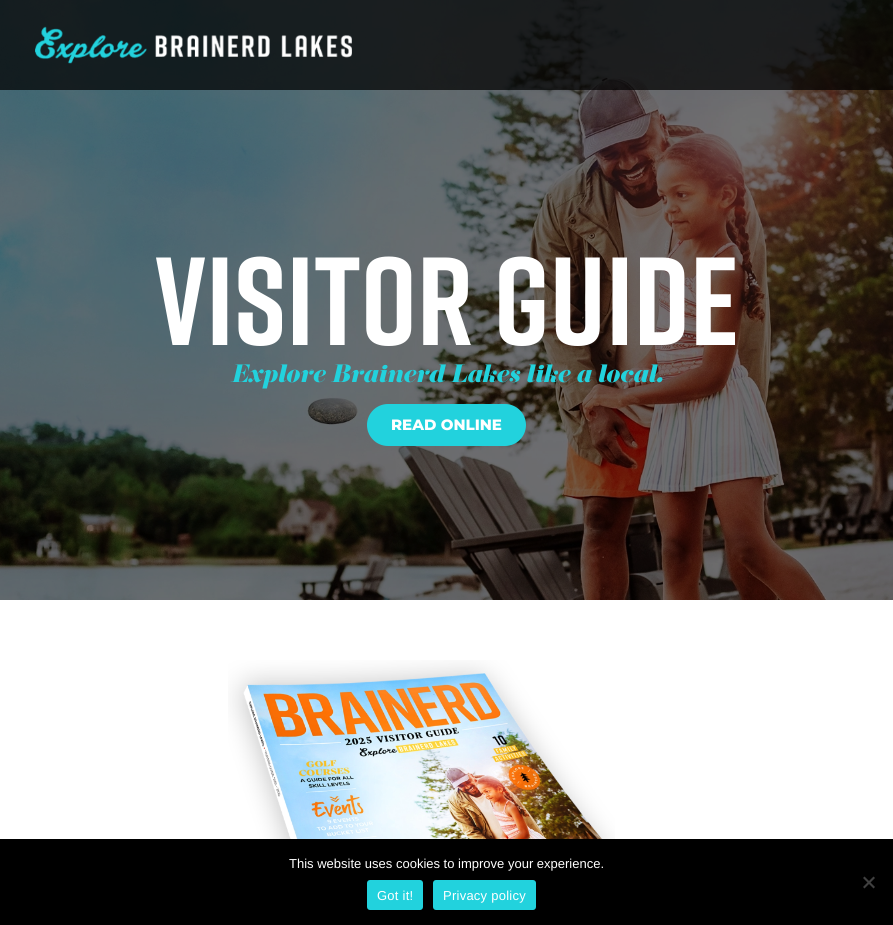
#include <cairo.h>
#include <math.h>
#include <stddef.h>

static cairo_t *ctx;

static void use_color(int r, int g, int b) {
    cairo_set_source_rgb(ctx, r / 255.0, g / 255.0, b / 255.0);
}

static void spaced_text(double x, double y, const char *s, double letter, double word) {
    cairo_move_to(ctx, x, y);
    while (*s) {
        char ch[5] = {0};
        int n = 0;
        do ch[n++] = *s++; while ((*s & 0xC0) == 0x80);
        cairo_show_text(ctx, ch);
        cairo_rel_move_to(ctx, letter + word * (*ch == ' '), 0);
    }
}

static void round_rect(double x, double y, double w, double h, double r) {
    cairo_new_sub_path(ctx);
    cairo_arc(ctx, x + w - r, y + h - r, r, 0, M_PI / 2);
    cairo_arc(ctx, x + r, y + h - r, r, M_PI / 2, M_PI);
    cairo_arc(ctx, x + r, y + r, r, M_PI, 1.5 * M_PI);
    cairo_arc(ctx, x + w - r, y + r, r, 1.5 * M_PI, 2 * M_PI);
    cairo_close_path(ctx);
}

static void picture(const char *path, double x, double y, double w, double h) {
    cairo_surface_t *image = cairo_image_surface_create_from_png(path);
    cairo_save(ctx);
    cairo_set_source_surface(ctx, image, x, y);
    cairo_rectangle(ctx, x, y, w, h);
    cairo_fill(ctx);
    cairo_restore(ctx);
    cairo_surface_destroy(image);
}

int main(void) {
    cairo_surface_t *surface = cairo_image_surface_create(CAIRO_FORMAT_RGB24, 893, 925);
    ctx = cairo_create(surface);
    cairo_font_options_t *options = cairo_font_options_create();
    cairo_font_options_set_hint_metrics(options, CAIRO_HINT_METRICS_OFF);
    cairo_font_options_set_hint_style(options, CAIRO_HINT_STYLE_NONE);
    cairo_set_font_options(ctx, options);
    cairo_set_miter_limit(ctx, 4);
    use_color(255, 255, 255);
    cairo_paint(ctx);
    picture("img2.png", 0, 0, 893, 600);
    cairo_set_source_rgba(ctx, 0, 0, 0, 0.72);
    cairo_rectangle(ctx, 0, 0, 893, 90);
    cairo_fill(ctx);
    picture("img1.png", 35, 26, 317, 38);
    cairo_select_font_face(ctx, "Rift", CAIRO_FONT_SLANT_NORMAL, CAIRO_FONT_WEIGHT_BOLD);
    cairo_set_font_size(ctx, 125);
    use_color(255, 255, 255);
    cairo_move_to(ctx, 155, 345);
    cairo_show_text(ctx, "Visitor Guide");
    cairo_select_font_face(ctx, "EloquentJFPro", CAIRO_FONT_SLANT_ITALIC, CAIRO_FONT_WEIGHT_NORMAL);
    cairo_set_font_size(ctx, 22);
    use_color(34, 210, 221);
    cairo_move_to(ctx, 231, 382);
    cairo_show_text(ctx, "Explore Brainerd Lakes like a local.");
    round_rect(367, 404, 159, 42, 21);
    cairo_fill(ctx);
    cairo_select_font_face(ctx, "Montserrat ExtraBold", CAIRO_FONT_SLANT_NORMAL, CAIRO_FONT_WEIGHT_NORMAL);
    cairo_set_font_size(ctx, 15);
    use_color(255, 255, 255);
    cairo_move_to(ctx, 391, 430);
    cairo_show_text(ctx, "READ ONLINE");
    picture("img3.png", 228, 660, 387, 179);
    use_color(0, 0, 0);
    cairo_rectangle(ctx, 0, 839, 893, 86);
    cairo_fill(ctx);
    cairo_select_font_face(ctx, "Liberation Sans", CAIRO_FONT_SLANT_NORMAL, CAIRO_FONT_WEIGHT_NORMAL);
    cairo_set_font_size(ctx, 13);
    use_color(255, 255, 255);
    cairo_move_to(ctx, 289, 868);
    cairo_show_text(ctx, "This website uses cookies to improve your experience.");
    use_color(64, 64, 64);
    cairo_new_path(ctx);
    cairo_move_to(ctx, 873.5, 876.5);
    cairo_line_to(ctx, 875, 878);
    cairo_line_to(ctx, 864.5, 888.5);
    cairo_line_to(ctx, 863, 887);
    cairo_close_path(ctx);
    cairo_fill(ctx);
    cairo_new_path(ctx);
    cairo_move_to(ctx, 863, 878);
    cairo_line_to(ctx, 864.5, 876.5);
    cairo_line_to(ctx, 875, 887);
    cairo_line_to(ctx, 873.5, 888.5);
    cairo_close_path(ctx);
    cairo_fill(ctx);
    use_color(34, 210, 221);
    round_rect(367, 880, 56, 30, 3);
    cairo_fill(ctx);
    use_color(255, 255, 255);
    spaced_text(377, 900, "Got it!", 0.25, 0);
    use_color(34, 210, 221);
    round_rect(433, 880, 103, 30, 3);
    cairo_fill(ctx);
    use_color(255, 255, 255);
    spaced_text(443, 900, "Privacy policy", 0.25, 0);
    cairo_surface_write_to_png(surface, "result.png");
    cairo_font_options_destroy(options);
    cairo_destroy(ctx);
    cairo_surface_destroy(surface);
    return 0;
}
